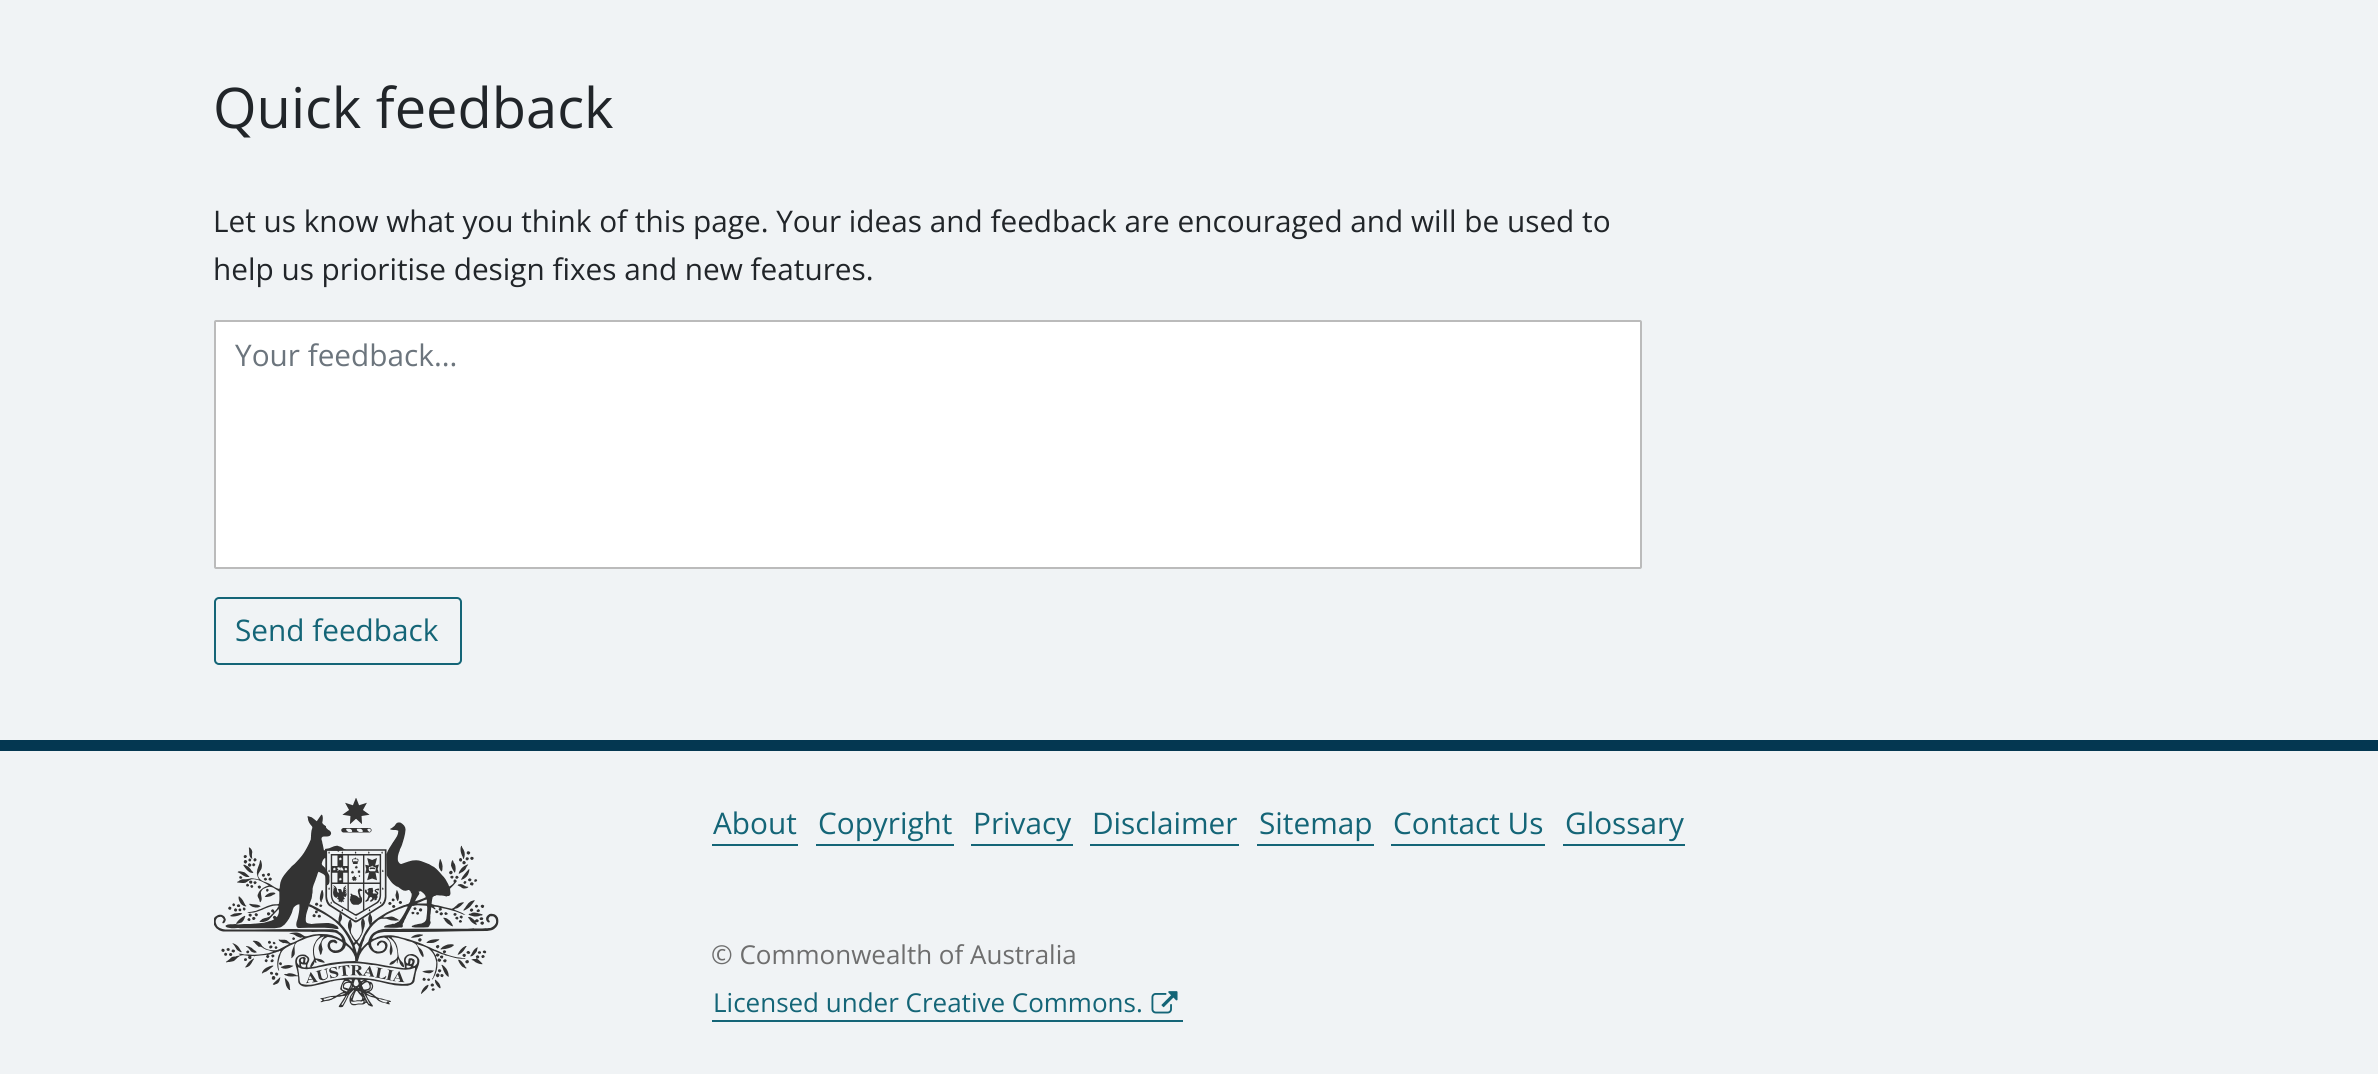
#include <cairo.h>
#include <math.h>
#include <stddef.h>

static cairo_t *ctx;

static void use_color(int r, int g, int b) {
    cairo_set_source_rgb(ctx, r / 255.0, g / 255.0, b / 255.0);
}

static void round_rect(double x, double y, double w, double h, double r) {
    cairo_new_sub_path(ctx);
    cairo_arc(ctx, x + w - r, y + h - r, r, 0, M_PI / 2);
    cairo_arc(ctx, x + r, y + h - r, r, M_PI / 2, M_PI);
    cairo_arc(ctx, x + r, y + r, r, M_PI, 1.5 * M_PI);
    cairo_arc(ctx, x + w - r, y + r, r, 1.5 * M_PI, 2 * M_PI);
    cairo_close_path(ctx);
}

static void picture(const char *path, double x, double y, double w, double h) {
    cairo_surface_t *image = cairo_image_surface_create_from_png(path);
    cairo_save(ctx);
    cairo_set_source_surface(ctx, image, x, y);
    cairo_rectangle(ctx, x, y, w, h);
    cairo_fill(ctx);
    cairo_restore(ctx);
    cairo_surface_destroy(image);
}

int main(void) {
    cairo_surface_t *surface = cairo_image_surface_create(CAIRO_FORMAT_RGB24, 2378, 1074);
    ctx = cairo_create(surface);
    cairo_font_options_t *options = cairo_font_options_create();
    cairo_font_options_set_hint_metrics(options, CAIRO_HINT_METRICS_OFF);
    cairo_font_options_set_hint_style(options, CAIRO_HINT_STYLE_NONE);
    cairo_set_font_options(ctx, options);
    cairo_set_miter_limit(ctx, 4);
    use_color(240, 243, 245);
    cairo_paint(ctx);
    cairo_select_font_face(ctx, "Open Sans", CAIRO_FONT_SLANT_NORMAL, CAIRO_FONT_WEIGHT_NORMAL);
    cairo_set_font_size(ctx, 56);
    use_color(33, 37, 41);
    cairo_move_to(ctx, 213, 128);
    cairo_show_text(ctx, "Quick feedback");
    cairo_set_font_size(ctx, 29.75);
    cairo_move_to(ctx, 213, 232);
    cairo_show_text(ctx, "Let us know what you think of this page. Your ideas and feedback are encouraged and will be used to");
    cairo_move_to(ctx, 213, 280);
    cairo_show_text(ctx, "help us prioritise design fixes and new features.");
    use_color(255, 255, 255);
    round_rect(215, 321, 1426, 247, 1);
    cairo_fill_preserve(ctx);
    use_color(187, 187, 187);
    cairo_stroke(ctx);
    use_color(108, 117, 125);
    cairo_move_to(ctx, 235, 366);
    cairo_show_text(ctx, "Your feedback...");
    round_rect(215, 598, 246, 66, 4);
    use_color(20, 101, 119);
    cairo_stroke(ctx);
    cairo_move_to(ctx, 235, 641);
    cairo_show_text(ctx, "Send feedback");
    use_color(4, 55, 81);
    cairo_rectangle(ctx, 0, 740, 2378, 11);
    cairo_fill(ctx);
    picture("img1.png", 214, 798, 285, 210);
    use_color(20, 101, 119);
    cairo_move_to(ctx, 713, 834);
    cairo_show_text(ctx, "About");
    cairo_rectangle(ctx, 712, 844, 86, 2);
    cairo_fill(ctx);
    cairo_move_to(ctx, 818, 834);
    cairo_show_text(ctx, "Copyright");
    cairo_rectangle(ctx, 816, 844, 138, 2);
    cairo_fill(ctx);
    cairo_move_to(ctx, 973, 834);
    cairo_show_text(ctx, "Privacy");
    cairo_rectangle(ctx, 971, 844, 102, 2);
    cairo_fill(ctx);
    cairo_move_to(ctx, 1092, 834);
    cairo_show_text(ctx, "Disclaimer");
    cairo_rectangle(ctx, 1090, 844, 149, 2);
    cairo_fill(ctx);
    cairo_move_to(ctx, 1259, 834);
    cairo_show_text(ctx, "Sitemap");
    cairo_rectangle(ctx, 1257, 844, 117, 2);
    cairo_fill(ctx);
    cairo_move_to(ctx, 1393, 834);
    cairo_show_text(ctx, "Contact Us");
    cairo_rectangle(ctx, 1391, 844, 154, 2);
    cairo_fill(ctx);
    cairo_move_to(ctx, 1565, 834);
    cairo_show_text(ctx, "Glossary");
    cairo_rectangle(ctx, 1563, 844, 122, 2);
    cairo_fill(ctx);
    cairo_set_font_size(ctx, 26);
    use_color(110, 110, 110);
    cairo_move_to(ctx, 711, 964);
    cairo_show_text(ctx, "© Commonwealth of Australia");
    use_color(20, 101, 119);
    cairo_rectangle(ctx, 712, 1020, 471, 2);
    cairo_fill(ctx);
    cairo_move_to(ctx, 713, 1012);
    cairo_show_text(ctx, "Licensed under Creative Commons.");
    picture("img2.png", 1151, 991, 27, 23);
    cairo_surface_write_to_png(surface, "result.png");
    cairo_font_options_destroy(options);
    cairo_destroy(ctx);
    cairo_surface_destroy(surface);
    return 0;
}
